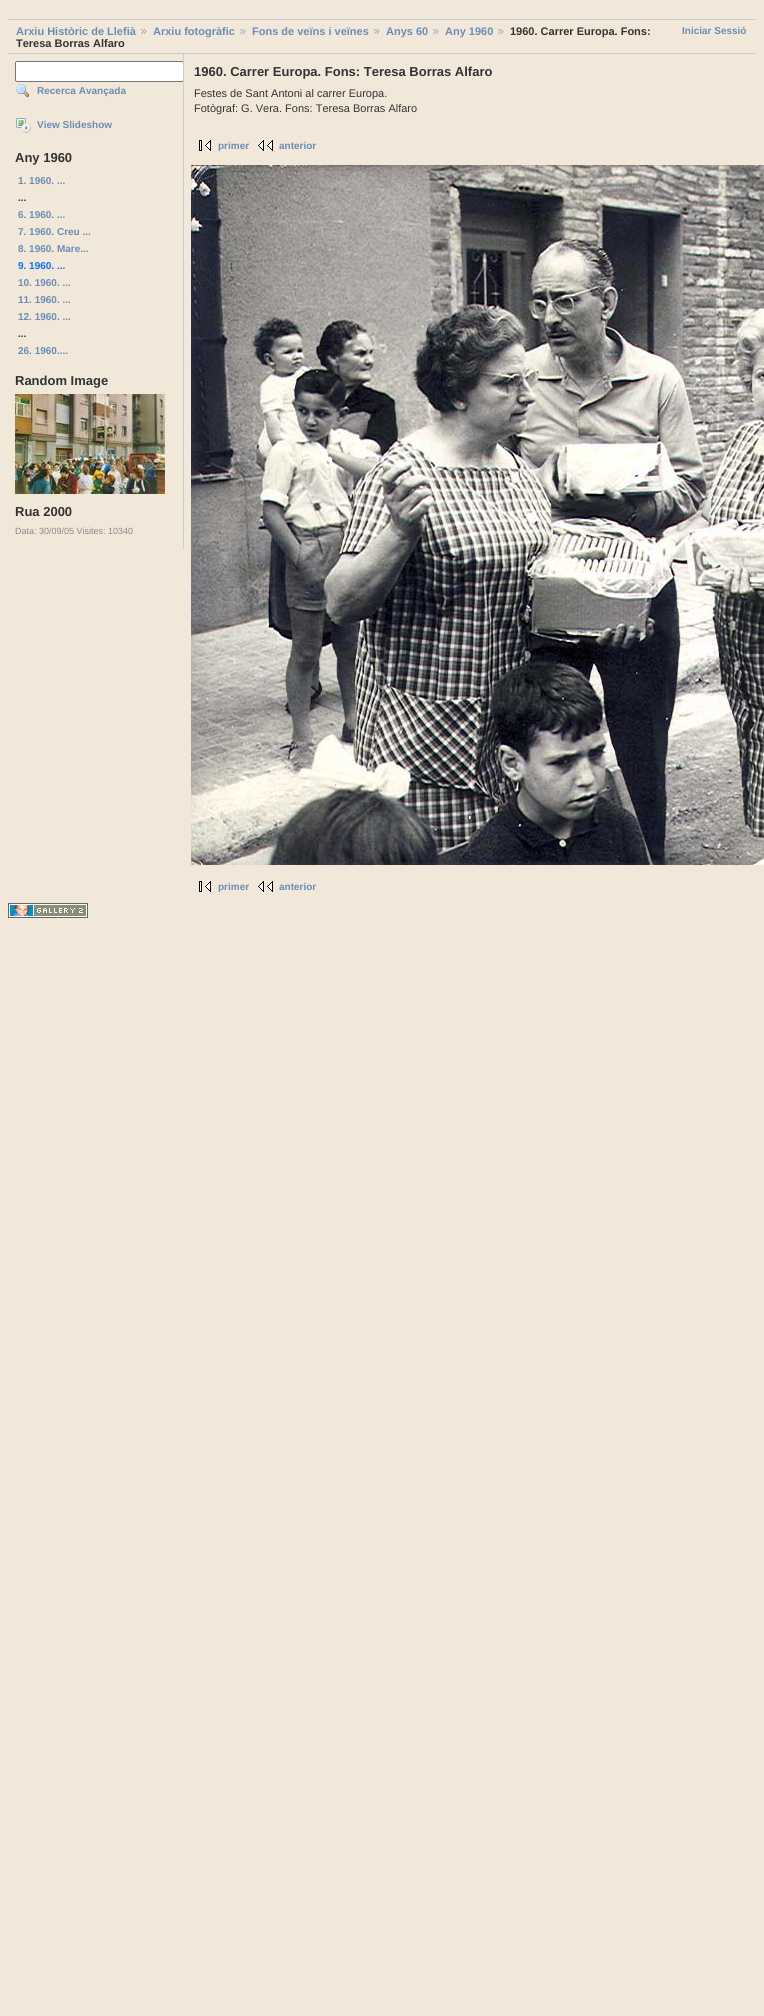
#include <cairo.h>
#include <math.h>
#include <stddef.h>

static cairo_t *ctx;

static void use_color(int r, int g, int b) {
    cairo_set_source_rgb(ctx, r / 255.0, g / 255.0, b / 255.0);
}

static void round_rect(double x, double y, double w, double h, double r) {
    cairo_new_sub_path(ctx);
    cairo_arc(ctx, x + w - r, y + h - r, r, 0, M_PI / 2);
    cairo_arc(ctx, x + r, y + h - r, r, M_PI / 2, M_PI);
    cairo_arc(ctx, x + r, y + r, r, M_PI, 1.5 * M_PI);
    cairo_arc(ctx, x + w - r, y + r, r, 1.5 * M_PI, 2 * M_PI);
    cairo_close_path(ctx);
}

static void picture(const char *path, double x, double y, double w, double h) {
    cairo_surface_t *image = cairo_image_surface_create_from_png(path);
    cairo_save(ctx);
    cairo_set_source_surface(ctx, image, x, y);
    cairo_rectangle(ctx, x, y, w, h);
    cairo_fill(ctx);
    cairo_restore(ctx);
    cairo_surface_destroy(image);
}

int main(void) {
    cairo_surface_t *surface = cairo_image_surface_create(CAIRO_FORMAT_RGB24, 764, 2016);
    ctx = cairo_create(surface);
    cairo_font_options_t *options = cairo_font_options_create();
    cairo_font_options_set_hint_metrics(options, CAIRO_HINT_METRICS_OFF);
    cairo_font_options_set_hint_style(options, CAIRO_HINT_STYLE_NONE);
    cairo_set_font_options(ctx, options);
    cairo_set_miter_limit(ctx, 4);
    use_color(242, 232, 217);
    cairo_paint(ctx);
    use_color(204, 204, 204);
    cairo_rectangle(ctx, 8, 19, 748, 1);
    cairo_fill(ctx);
    cairo_rectangle(ctx, 8, 53, 748, 1);
    cairo_fill(ctx);
    cairo_select_font_face(ctx, "Liberation Sans", CAIRO_FONT_SLANT_NORMAL, CAIRO_FONT_WEIGHT_BOLD);
    cairo_set_font_size(ctx, 11);
    use_color(107, 140, 183);
    cairo_move_to(ctx, 16, 35);
    cairo_show_text(ctx, "Arxiu Històric de Llefià");
    picture("img1.png", 141, 29, 6, 5);
    cairo_move_to(ctx, 153, 35);
    cairo_show_text(ctx, "Arxiu fotogràfic");
    picture("img1.png", 240, 29, 6, 5);
    cairo_move_to(ctx, 252, 35);
    cairo_show_text(ctx, "Fons de veïns i veïnes");
    picture("img1.png", 374, 29, 6, 5);
    cairo_move_to(ctx, 386, 35);
    cairo_show_text(ctx, "Anys 60");
    picture("img1.png", 433, 29, 6, 5);
    cairo_move_to(ctx, 445, 35);
    cairo_show_text(ctx, "Any 1960");
    picture("img1.png", 498, 29, 6, 5);
    use_color(51, 51, 51);
    cairo_move_to(ctx, 510, 35);
    cairo_show_text(ctx, "1960. Carrer Europa. Fons:");
    cairo_move_to(ctx, 16, 47);
    cairo_show_text(ctx, "Teresa Borras Alfaro");
    cairo_set_font_size(ctx, 10);
    use_color(107, 140, 183);
    cairo_move_to(ctx, 682, 34);
    cairo_show_text(ctx, "Iniciar Sessió");
    use_color(204, 204, 204);
    cairo_rectangle(ctx, 183, 54, 1, 495);
    cairo_fill(ctx);
    cairo_save(ctx);
    cairo_rectangle(ctx, 8, 54, 175, 495);
    cairo_clip(ctx);
    use_color(255, 255, 255);
    round_rect(15.5, 61.5, 168, 20, 1.5);
    cairo_fill_preserve(ctx);
    use_color(118, 118, 118);
    cairo_set_line_width(ctx, 1);
    cairo_stroke(ctx);
    cairo_restore(ctx);
    picture("img2.png", 16, 84, 13, 14);
    use_color(107, 140, 183);
    cairo_move_to(ctx, 37, 94);
    cairo_show_text(ctx, "Recerca Avançada");
    picture("img3.png", 16, 118, 15, 15);
    cairo_move_to(ctx, 37, 128);
    cairo_show_text(ctx, "View Slideshow");
    cairo_set_font_size(ctx, 13);
    use_color(51, 51, 51);
    cairo_move_to(ctx, 15, 162);
    cairo_show_text(ctx, "Any 1960");
    cairo_set_font_size(ctx, 10);
    use_color(107, 140, 183);
    cairo_move_to(ctx, 18, 184);
    cairo_show_text(ctx, "1. 1960. ...");
    use_color(51, 51, 51);
    cairo_move_to(ctx, 18, 201);
    cairo_show_text(ctx, "...");
    use_color(107, 140, 183);
    cairo_move_to(ctx, 18, 218);
    cairo_show_text(ctx, "6. 1960. ...");
    cairo_move_to(ctx, 18, 235);
    cairo_show_text(ctx, "7. 1960. Creu ...");
    cairo_move_to(ctx, 18, 252);
    cairo_show_text(ctx, "8. 1960. Mare...");
    use_color(11, 108, 255);
    cairo_move_to(ctx, 18, 269);
    cairo_show_text(ctx, "9. 1960. ...");
    use_color(107, 140, 183);
    cairo_move_to(ctx, 18, 286);
    cairo_show_text(ctx, "10. 1960. ...");
    cairo_move_to(ctx, 18, 303);
    cairo_show_text(ctx, "11. 1960. ...");
    cairo_move_to(ctx, 18, 320);
    cairo_show_text(ctx, "12. 1960. ...");
    use_color(51, 51, 51);
    cairo_move_to(ctx, 18, 337);
    cairo_show_text(ctx, "...");
    use_color(107, 140, 183);
    cairo_move_to(ctx, 18, 354);
    cairo_show_text(ctx, "26. 1960....");
    cairo_set_font_size(ctx, 13);
    use_color(51, 51, 51);
    cairo_move_to(ctx, 15, 385);
    cairo_show_text(ctx, "Random Image");
    picture("img4.png", 15, 394, 150, 100);
    cairo_move_to(ctx, 15, 516);
    cairo_show_text(ctx, "Rua 2000");
    cairo_select_font_face(ctx, "Liberation Sans", CAIRO_FONT_SLANT_NORMAL, CAIRO_FONT_WEIGHT_NORMAL);
    cairo_set_font_size(ctx, 9);
    use_color(136, 136, 136);
    cairo_move_to(ctx, 15, 534);
    cairo_show_text(ctx, "Data: 30/09/05 Visites: 10340");
    cairo_select_font_face(ctx, "Liberation Sans", CAIRO_FONT_SLANT_NORMAL, CAIRO_FONT_WEIGHT_BOLD);
    cairo_set_font_size(ctx, 13);
    use_color(51, 51, 51);
    cairo_move_to(ctx, 194, 76);
    cairo_show_text(ctx, "1960. Carrer Europa. Fons: Teresa Borras Alfaro");
    cairo_select_font_face(ctx, "Liberation Sans", CAIRO_FONT_SLANT_NORMAL, CAIRO_FONT_WEIGHT_NORMAL);
    cairo_set_font_size(ctx, 11);
    cairo_move_to(ctx, 194, 97);
    cairo_show_text(ctx, "Festes de Sant Antoni al carrer Europa.");
    cairo_move_to(ctx, 194, 112);
    cairo_show_text(ctx, "Fotògraf: G. Vera. Fons: Teresa Borras Alfaro");
    picture("img5.png", 199, 140, 12, 11);
    cairo_select_font_face(ctx, "Liberation Sans", CAIRO_FONT_SLANT_NORMAL, CAIRO_FONT_WEIGHT_BOLD);
    cairo_set_font_size(ctx, 10);
    use_color(107, 140, 183);
    cairo_move_to(ctx, 218, 149);
    cairo_show_text(ctx, "primer");
    picture("img6.png", 258, 140, 15, 11);
    cairo_move_to(ctx, 279, 149);
    cairo_show_text(ctx, "anterior");
    picture("img7.png", 191, 165, 573, 700);
    picture("img5.png", 199, 881, 12, 11);
    cairo_move_to(ctx, 218, 890);
    cairo_show_text(ctx, "primer");
    picture("img6.png", 258, 881, 15, 11);
    cairo_move_to(ctx, 279, 890);
    cairo_show_text(ctx, "anterior");
    picture("img8.png", 8, 903, 80, 15);
    cairo_surface_write_to_png(surface, "result.png");
    cairo_font_options_destroy(options);
    cairo_destroy(ctx);
    cairo_surface_destroy(surface);
    return 0;
}
